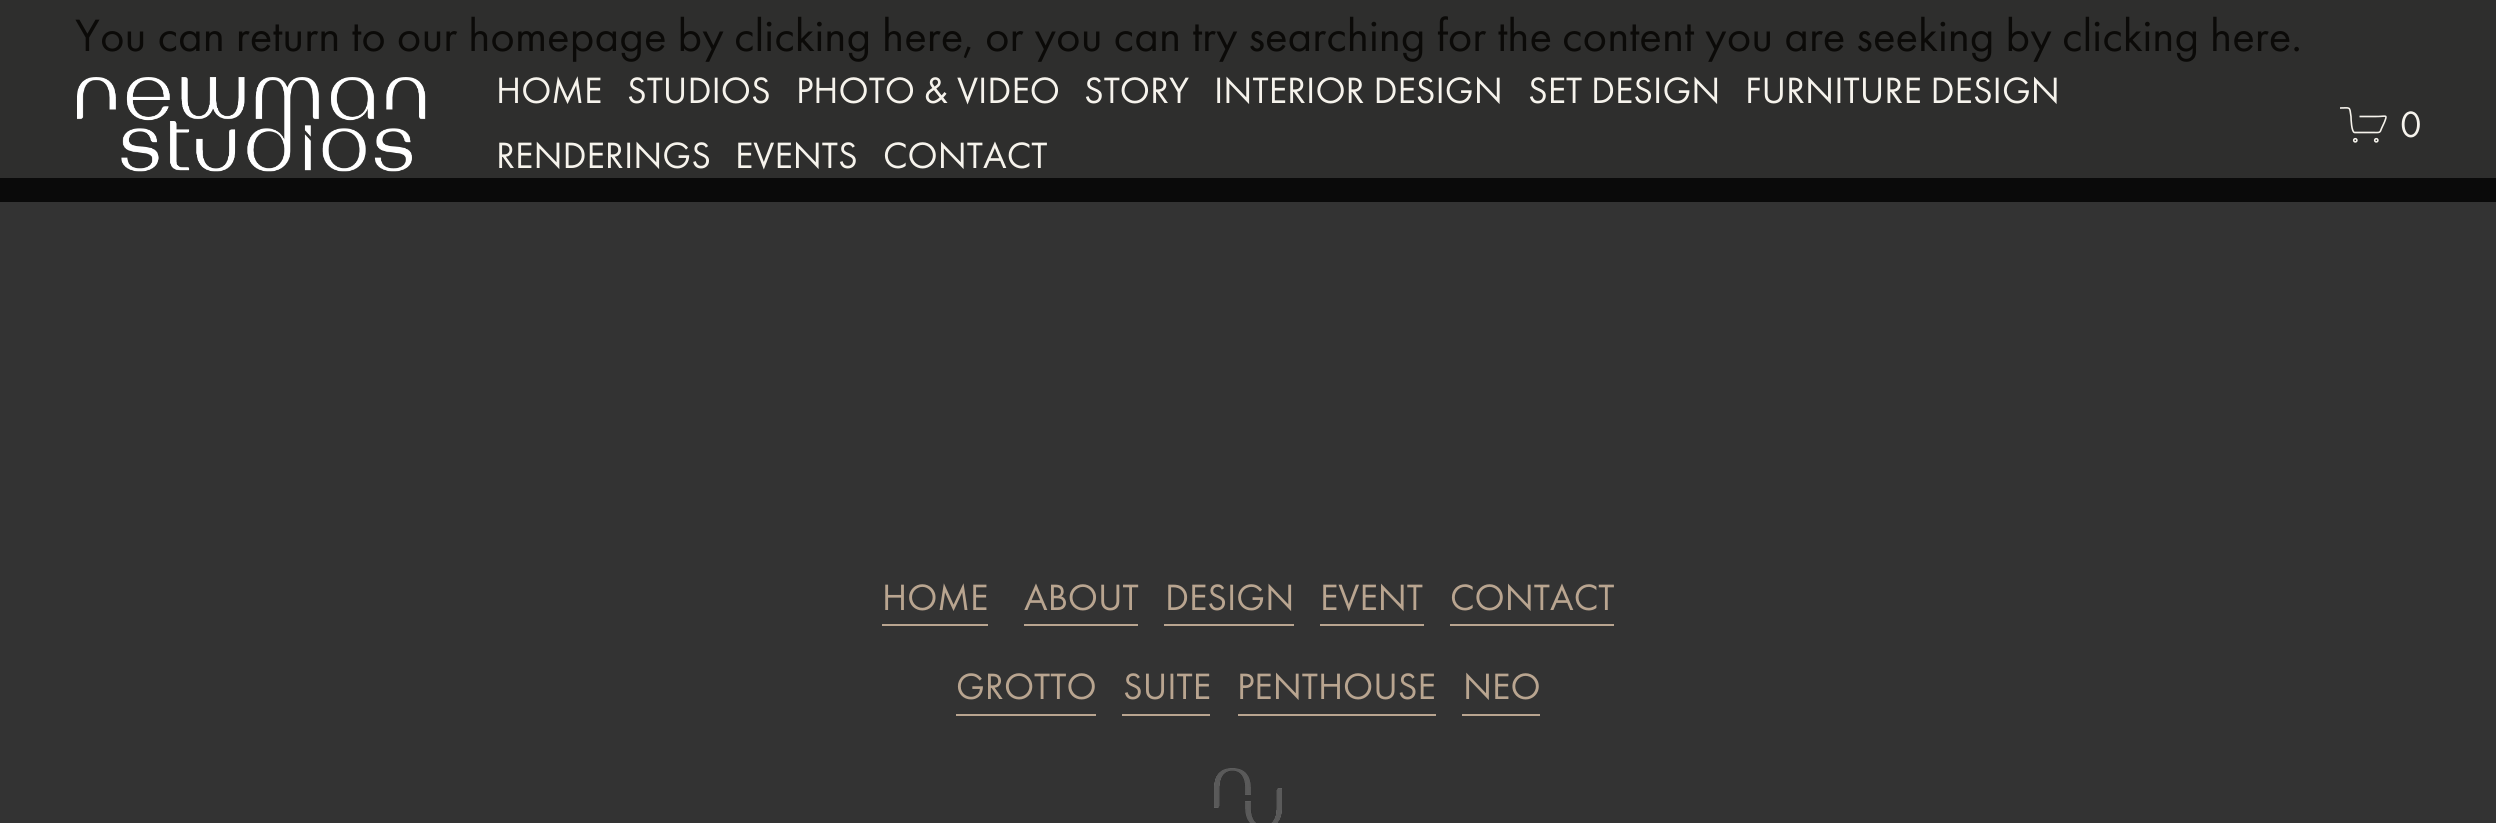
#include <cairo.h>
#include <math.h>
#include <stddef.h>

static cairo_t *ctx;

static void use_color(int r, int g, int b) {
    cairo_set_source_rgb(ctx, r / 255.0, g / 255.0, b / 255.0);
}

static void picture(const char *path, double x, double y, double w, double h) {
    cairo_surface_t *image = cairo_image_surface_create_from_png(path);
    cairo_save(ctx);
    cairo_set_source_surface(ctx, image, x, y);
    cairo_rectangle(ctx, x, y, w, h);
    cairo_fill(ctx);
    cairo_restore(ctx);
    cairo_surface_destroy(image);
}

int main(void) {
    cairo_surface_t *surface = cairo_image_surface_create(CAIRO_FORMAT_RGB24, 2496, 823);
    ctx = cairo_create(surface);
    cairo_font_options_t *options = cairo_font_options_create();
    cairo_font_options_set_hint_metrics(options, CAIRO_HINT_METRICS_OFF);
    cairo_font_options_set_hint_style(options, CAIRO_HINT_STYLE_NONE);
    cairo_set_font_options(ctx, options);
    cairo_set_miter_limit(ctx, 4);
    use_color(46, 46, 45);
    cairo_paint(ctx);
    cairo_select_font_face(ctx, "Futura PT", CAIRO_FONT_SLANT_NORMAL, CAIRO_FONT_WEIGHT_NORMAL);
    cairo_set_font_size(ctx, 47);
    use_color(11, 10, 8);
    cairo_move_to(ctx, 75, 51);
    cairo_show_text(ctx, "You can return to our homepage by");
    cairo_move_to(ctx, 734, 51);
    cairo_show_text(ctx, "clicking here, or you can try searching for the");
    cairo_move_to(ctx, 1562, 51);
    cairo_show_text(ctx, "content you are seeking by");
    cairo_move_to(ctx, 2062, 51);
    cairo_show_text(ctx, "clicking here.");
    picture("img1.png", 77, 77, 349, 95);
    cairo_set_font_size(ctx, 38);
    use_color(246, 243, 236);
    cairo_move_to(ctx, 496, 103);
    cairo_show_text(ctx, "HOME");
    cairo_move_to(ctx, 627, 103);
    cairo_show_text(ctx, "STUDIOS");
    cairo_move_to(ctx, 796, 103);
    cairo_show_text(ctx, "PHOTO & VIDEO");
    cairo_move_to(ctx, 1084, 103);
    cairo_show_text(ctx, "STORY");
    cairo_move_to(ctx, 1214, 103);
    cairo_show_text(ctx, "INTERIOR DESIGN");
    cairo_move_to(ctx, 1528, 103);
    cairo_show_text(ctx, "SET DESIGN");
    cairo_move_to(ctx, 1745, 103);
    cairo_show_text(ctx, "FURNITURE DESIGN");
    cairo_move_to(ctx, 496, 168);
    cairo_show_text(ctx, "RENDERINGS");
    cairo_move_to(ctx, 735, 168);
    cairo_show_text(ctx, "EVENTS");
    cairo_move_to(ctx, 883, 168);
    cairo_show_text(ctx, "CONTACT");
    cairo_new_path(ctx);
    cairo_arc(ctx, 2376.3, 140.3, 1.6, 0, 2 * M_PI);
    cairo_set_line_width(ctx, 1.6);
    cairo_stroke(ctx);
    cairo_arc(ctx, 2355.3, 140.3, 1.6, 0, 2 * M_PI);
    cairo_stroke(ctx);
    cairo_new_path(ctx);
    cairo_move_to(ctx, 2340, 108);
    cairo_curve_to(ctx, 2350.5, 108, 2349.5, 106, 2351, 116.5);
    cairo_curve_to(ctx, 2351, 119, 2351.5, 132, 2354.5, 132.5);
    cairo_line_to(ctx, 2374.5, 132.5);
    cairo_curve_to(ctx, 2379.5, 132.5, 2380, 133, 2381.5, 128.5);
    cairo_line_to(ctx, 2384.5, 122);
    cairo_curve_to(ctx, 2387.5, 114, 2386.5, 116.5, 2376.5, 116.5);
    cairo_line_to(ctx, 2359.5, 116.5);
    cairo_stroke(ctx);
    cairo_move_to(ctx, 2400, 137);
    cairo_show_text(ctx, "0");
    use_color(51, 51, 51);
    cairo_rectangle(ctx, 0, 202, 2496, 621);
    cairo_fill(ctx);
    use_color(10, 10, 10);
    cairo_rectangle(ctx, 0, 178, 2496, 24);
    cairo_fill(ctx);
    use_color(185, 165, 144);
    cairo_rectangle(ctx, 882, 624, 106, 2);
    cairo_fill(ctx);
    cairo_move_to(ctx, 882, 610);
    cairo_show_text(ctx, "HOME");
    cairo_rectangle(ctx, 1024, 624, 114, 2);
    cairo_fill(ctx);
    cairo_move_to(ctx, 1024, 610);
    cairo_show_text(ctx, "ABOUT");
    cairo_rectangle(ctx, 1164, 624, 130, 2);
    cairo_fill(ctx);
    cairo_move_to(ctx, 1165, 610);
    cairo_show_text(ctx, "DESIGN");
    cairo_rectangle(ctx, 1320, 624, 104, 2);
    cairo_fill(ctx);
    cairo_move_to(ctx, 1320, 610);
    cairo_show_text(ctx, "EVENT");
    cairo_rectangle(ctx, 1450, 624, 164, 2);
    cairo_fill(ctx);
    cairo_move_to(ctx, 1450, 610);
    cairo_show_text(ctx, "CONTACT");
    cairo_rectangle(ctx, 956, 714, 140, 2);
    cairo_fill(ctx);
    cairo_move_to(ctx, 956, 699);
    cairo_show_text(ctx, "GROTTO");
    cairo_rectangle(ctx, 1122, 714, 88, 2);
    cairo_fill(ctx);
    cairo_move_to(ctx, 1123, 699);
    cairo_show_text(ctx, "SUITE");
    cairo_rectangle(ctx, 1238, 714, 198, 2);
    cairo_fill(ctx);
    cairo_move_to(ctx, 1237, 699);
    cairo_show_text(ctx, "PENTHOUSE");
    cairo_rectangle(ctx, 1462, 714, 78, 2);
    cairo_fill(ctx);
    cairo_move_to(ctx, 1463, 699);
    cairo_show_text(ctx, "NEO");
    picture("img2.png", 1214, 768, 68, 55);
    cairo_surface_write_to_png(surface, "result.png");
    cairo_font_options_destroy(options);
    cairo_destroy(ctx);
    cairo_surface_destroy(surface);
    return 0;
}
